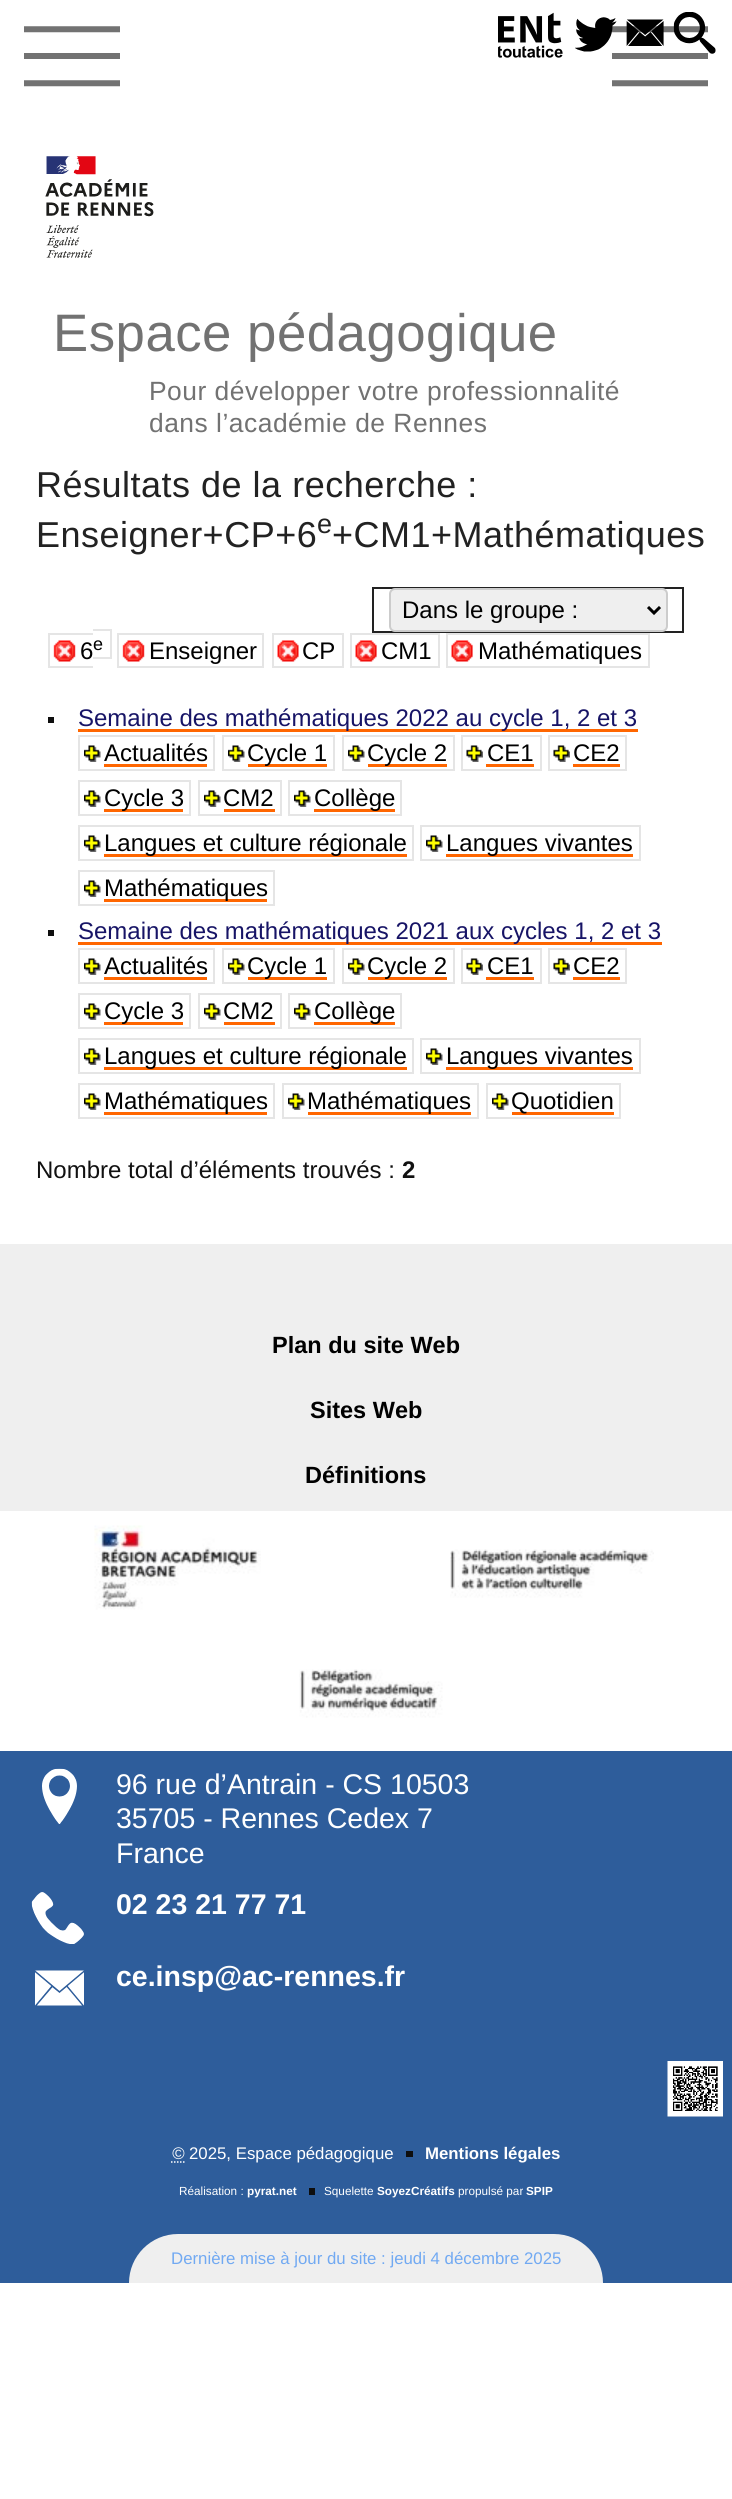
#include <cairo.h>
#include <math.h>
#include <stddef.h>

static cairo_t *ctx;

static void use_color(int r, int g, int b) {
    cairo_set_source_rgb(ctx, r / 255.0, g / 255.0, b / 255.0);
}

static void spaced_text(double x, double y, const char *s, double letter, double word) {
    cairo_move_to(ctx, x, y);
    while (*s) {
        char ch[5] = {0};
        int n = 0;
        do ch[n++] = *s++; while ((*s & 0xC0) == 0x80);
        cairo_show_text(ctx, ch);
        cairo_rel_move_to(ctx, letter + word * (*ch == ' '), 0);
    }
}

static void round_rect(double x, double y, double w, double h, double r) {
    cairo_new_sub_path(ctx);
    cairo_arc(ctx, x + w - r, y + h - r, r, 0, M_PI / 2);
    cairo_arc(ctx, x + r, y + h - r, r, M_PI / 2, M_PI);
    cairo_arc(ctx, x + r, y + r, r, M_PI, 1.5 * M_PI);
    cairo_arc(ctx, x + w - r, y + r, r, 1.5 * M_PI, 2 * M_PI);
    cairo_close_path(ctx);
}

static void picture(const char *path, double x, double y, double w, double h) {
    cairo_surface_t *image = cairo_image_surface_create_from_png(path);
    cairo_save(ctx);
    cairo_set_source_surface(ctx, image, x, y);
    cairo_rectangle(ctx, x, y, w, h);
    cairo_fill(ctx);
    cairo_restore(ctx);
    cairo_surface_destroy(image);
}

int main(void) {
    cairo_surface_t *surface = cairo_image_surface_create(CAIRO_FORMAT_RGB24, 732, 2499);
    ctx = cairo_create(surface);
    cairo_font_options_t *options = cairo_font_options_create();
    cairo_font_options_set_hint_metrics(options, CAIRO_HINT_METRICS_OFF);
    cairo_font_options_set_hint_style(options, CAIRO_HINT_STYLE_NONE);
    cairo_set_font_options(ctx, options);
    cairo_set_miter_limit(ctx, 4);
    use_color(255, 255, 255);
    cairo_paint(ctx);
    picture("img1.png", 498, 12, 65, 46);
    picture("img5.png", 612, 26, 96, 61);
    picture("img2.png", 575, 17, 42, 35);
    picture("img3.png", 626, 19, 38, 27);
    picture("img4.png", 673, 12, 43, 42);
    picture("img5.png", 24, 26, 96, 61);
    picture("img6.png", 45, 156, 109, 102);
    cairo_select_font_face(ctx, "Liberation Sans", CAIRO_FONT_SLANT_NORMAL, CAIRO_FONT_WEIGHT_NORMAL);
    cairo_set_font_size(ctx, 52.75);
    use_color(114, 114, 114);
    spaced_text(53, 351, "Espace pédagogique", 0.5, 0);
    cairo_set_font_size(ctx, 26.4);
    spaced_text(149, 400, "Pour développer votre professionnalité", 0.5, 0);
    spaced_text(149, 432, "dans l’académie de Rennes", 0.5, 0);
    cairo_set_font_size(ctx, 36);
    use_color(34, 34, 34);
    spaced_text(36, 497, "Résultats de la recherche :", 0.5, 0);
    spaced_text(36, 547, "Enseigner+CP+6", 0.5, 0);
    cairo_set_font_size(ctx, 27);
    spaced_text(317, 533, "e", 0.5, 0);
    cairo_set_font_size(ctx, 36);
    spaced_text(332, 547, "+CM1+Mathématiques", 0.5, 0);
    cairo_rectangle(ctx, 373, 588, 310, 44);
    cairo_stroke(ctx);
    use_color(239, 239, 239);
    round_rect(390, 589, 277, 42, 5);
    cairo_fill_preserve(ctx);
    use_color(204, 204, 204);
    cairo_stroke(ctx);
    cairo_new_path(ctx);
    cairo_move_to(ctx, 648, 607);
    cairo_line_to(ctx, 654, 613);
    cairo_line_to(ctx, 660, 607);
    use_color(0, 0, 0);
    cairo_set_line_width(ctx, 3);
    cairo_stroke(ctx);
    cairo_set_font_size(ctx, 24);
    cairo_move_to(ctx, 402, 618);
    cairo_show_text(ctx, "Dans le groupe :");
    picture("img7.png", 53, 640, 23, 22);
    cairo_move_to(ctx, 80, 659);
    cairo_show_text(ctx, "6");
    use_color(229, 229, 229);
    cairo_rectangle(ctx, 48, 666, 45, 2);
    cairo_fill(ctx);
    cairo_rectangle(ctx, 48, 633, 45, 2);
    cairo_fill(ctx);
    cairo_rectangle(ctx, 48, 633, 2, 35);
    cairo_fill(ctx);
    cairo_rectangle(ctx, 93, 629, 18, 2);
    cairo_fill(ctx);
    cairo_rectangle(ctx, 110, 629, 2, 30);
    cairo_fill(ctx);
    cairo_rectangle(ctx, 93, 657, 18, 2);
    cairo_fill(ctx);
    cairo_set_font_size(ctx, 18);
    use_color(0, 0, 0);
    cairo_move_to(ctx, 93, 650);
    cairo_show_text(ctx, "e");
    picture("img7.png", 122, 640, 23, 22);
    cairo_rectangle(ctx, 118, 634, 145, 33);
    use_color(229, 229, 229);
    cairo_set_line_width(ctx, 2);
    cairo_stroke(ctx);
    cairo_set_font_size(ctx, 24);
    use_color(0, 0, 0);
    cairo_move_to(ctx, 149, 659);
    cairo_show_text(ctx, "Enseigner");
    picture("img8.png", 277, 640, 22, 22);
    cairo_rectangle(ctx, 273, 634, 70, 33);
    use_color(229, 229, 229);
    cairo_stroke(ctx);
    use_color(0, 0, 0);
    cairo_move_to(ctx, 302, 659);
    cairo_show_text(ctx, "CP");
    picture("img9.png", 355, 640, 22, 22);
    cairo_rectangle(ctx, 351, 634, 88, 33);
    use_color(229, 229, 229);
    cairo_stroke(ctx);
    use_color(0, 0, 0);
    cairo_move_to(ctx, 381, 659);
    cairo_show_text(ctx, "CM1");
    picture("img9.png", 451, 640, 22, 22);
    cairo_rectangle(ctx, 447, 634, 202, 33);
    use_color(229, 229, 229);
    cairo_stroke(ctx);
    use_color(0, 0, 0);
    cairo_move_to(ctx, 478, 659);
    cairo_show_text(ctx, "Mathématiques");
    use_color(14, 14, 14);
    cairo_rectangle(ctx, 48, 717, 6, 6);
    cairo_fill(ctx);
    use_color(255, 102, 0);
    cairo_rectangle(ctx, 78, 729, 560, 3);
    cairo_fill(ctx);
    use_color(23, 20, 102);
    cairo_move_to(ctx, 78, 726);
    cairo_show_text(ctx, "Semaine des mathématiques 2022 au cycle 1, 2 et 3");
    picture("img10.png", 84, 745, 17, 17);
    cairo_rectangle(ctx, 79, 736, 135, 34);
    use_color(229, 229, 229);
    cairo_stroke(ctx);
    use_color(0, 0, 0);
    cairo_move_to(ctx, 104, 761);
    cairo_show_text(ctx, "Actualités");
    use_color(255, 102, 0);
    cairo_rectangle(ctx, 104, 764, 103, 3);
    cairo_fill(ctx);
    picture("img10.png", 228, 745, 17, 17);
    cairo_rectangle(ctx, 223, 736, 111, 34);
    use_color(229, 229, 229);
    cairo_stroke(ctx);
    use_color(255, 102, 0);
    cairo_rectangle(ctx, 248, 764, 79, 3);
    cairo_fill(ctx);
    use_color(0, 0, 0);
    cairo_move_to(ctx, 247, 761);
    cairo_show_text(ctx, "Cycle 1");
    picture("img11.png", 348, 745, 17, 17);
    cairo_rectangle(ctx, 343, 736, 111, 34);
    use_color(229, 229, 229);
    cairo_stroke(ctx);
    use_color(255, 102, 0);
    cairo_rectangle(ctx, 368, 764, 79, 3);
    cairo_fill(ctx);
    use_color(0, 0, 0);
    cairo_move_to(ctx, 367, 761);
    cairo_show_text(ctx, "Cycle 2");
    picture("img12.png", 466, 745, 17, 17);
    cairo_rectangle(ctx, 462, 736, 79, 34);
    use_color(229, 229, 229);
    cairo_stroke(ctx);
    use_color(0, 0, 0);
    cairo_move_to(ctx, 487, 761);
    cairo_show_text(ctx, "CE1");
    use_color(255, 102, 0);
    cairo_rectangle(ctx, 486, 764, 48, 3);
    cairo_fill(ctx);
    picture("img13.png", 553, 745, 17, 17);
    cairo_rectangle(ctx, 549, 736, 77, 34);
    use_color(229, 229, 229);
    cairo_stroke(ctx);
    use_color(0, 0, 0);
    cairo_move_to(ctx, 573, 761);
    cairo_show_text(ctx, "CE2");
    use_color(255, 102, 0);
    cairo_rectangle(ctx, 573, 764, 47, 3);
    cairo_fill(ctx);
    picture("img10.png", 84, 790, 17, 17);
    cairo_rectangle(ctx, 79, 781, 111, 34);
    use_color(229, 229, 229);
    cairo_stroke(ctx);
    use_color(255, 102, 0);
    cairo_rectangle(ctx, 104, 809, 79, 3);
    cairo_fill(ctx);
    use_color(0, 0, 0);
    cairo_move_to(ctx, 104, 806);
    cairo_show_text(ctx, "Cycle 3");
    picture("img10.png", 204, 790, 17, 17);
    cairo_rectangle(ctx, 199, 781, 82, 34);
    use_color(229, 229, 229);
    cairo_stroke(ctx);
    use_color(0, 0, 0);
    cairo_move_to(ctx, 223, 806);
    cairo_show_text(ctx, "CM2");
    use_color(255, 102, 0);
    cairo_rectangle(ctx, 224, 809, 51, 3);
    cairo_fill(ctx);
    picture("img11.png", 294, 790, 17, 17);
    cairo_rectangle(ctx, 289, 781, 112, 34);
    use_color(229, 229, 229);
    cairo_stroke(ctx);
    use_color(255, 102, 0);
    cairo_rectangle(ctx, 314, 809, 81, 3);
    cairo_fill(ctx);
    use_color(0, 0, 0);
    cairo_move_to(ctx, 314, 806);
    cairo_show_text(ctx, "Collège");
    picture("img10.png", 84, 835, 17, 17);
    cairo_rectangle(ctx, 79, 826, 334, 34);
    use_color(229, 229, 229);
    cairo_stroke(ctx);
    use_color(255, 102, 0);
    cairo_rectangle(ctx, 104, 854, 303, 3);
    cairo_fill(ctx);
    use_color(0, 0, 0);
    cairo_move_to(ctx, 104, 851);
    cairo_show_text(ctx, "Langues et culture régionale");
    picture("img11.png", 426, 835, 17, 17);
    cairo_rectangle(ctx, 421, 826, 219, 34);
    use_color(229, 229, 229);
    cairo_stroke(ctx);
    use_color(255, 102, 0);
    cairo_rectangle(ctx, 446, 854, 187, 3);
    cairo_fill(ctx);
    use_color(0, 0, 0);
    cairo_move_to(ctx, 446, 851);
    cairo_show_text(ctx, "Langues vivantes");
    picture("img10.png", 84, 880, 17, 17);
    cairo_rectangle(ctx, 79, 871, 195, 34);
    use_color(229, 229, 229);
    cairo_stroke(ctx);
    use_color(255, 102, 0);
    cairo_rectangle(ctx, 104, 899, 163, 3);
    cairo_fill(ctx);
    use_color(0, 0, 0);
    cairo_move_to(ctx, 104, 896);
    cairo_show_text(ctx, "Mathématiques");
    use_color(14, 14, 14);
    cairo_rectangle(ctx, 48, 930, 6, 6);
    cairo_fill(ctx);
    use_color(255, 102, 0);
    cairo_rectangle(ctx, 78, 942, 584, 3);
    cairo_fill(ctx);
    use_color(23, 20, 102);
    cairo_move_to(ctx, 78, 939);
    cairo_show_text(ctx, "Semaine des mathématiques 2021 aux cycles 1, 2 et 3");
    picture("img10.png", 84, 958, 17, 17);
    cairo_rectangle(ctx, 79, 949, 135, 34);
    use_color(229, 229, 229);
    cairo_stroke(ctx);
    use_color(0, 0, 0);
    cairo_move_to(ctx, 104, 974);
    cairo_show_text(ctx, "Actualités");
    use_color(255, 102, 0);
    cairo_rectangle(ctx, 104, 977, 103, 3);
    cairo_fill(ctx);
    picture("img10.png", 228, 958, 17, 17);
    cairo_rectangle(ctx, 223, 949, 111, 34);
    use_color(229, 229, 229);
    cairo_stroke(ctx);
    use_color(255, 102, 0);
    cairo_rectangle(ctx, 248, 977, 79, 3);
    cairo_fill(ctx);
    use_color(0, 0, 0);
    cairo_move_to(ctx, 247, 974);
    cairo_show_text(ctx, "Cycle 1");
    picture("img11.png", 348, 958, 17, 17);
    cairo_rectangle(ctx, 343, 949, 111, 34);
    use_color(229, 229, 229);
    cairo_stroke(ctx);
    use_color(255, 102, 0);
    cairo_rectangle(ctx, 368, 977, 79, 3);
    cairo_fill(ctx);
    use_color(0, 0, 0);
    cairo_move_to(ctx, 367, 974);
    cairo_show_text(ctx, "Cycle 2");
    picture("img12.png", 466, 958, 17, 17);
    cairo_rectangle(ctx, 462, 949, 79, 34);
    use_color(229, 229, 229);
    cairo_stroke(ctx);
    use_color(0, 0, 0);
    cairo_move_to(ctx, 487, 974);
    cairo_show_text(ctx, "CE1");
    use_color(255, 102, 0);
    cairo_rectangle(ctx, 486, 977, 48, 3);
    cairo_fill(ctx);
    picture("img13.png", 553, 958, 17, 17);
    cairo_rectangle(ctx, 549, 949, 77, 34);
    use_color(229, 229, 229);
    cairo_stroke(ctx);
    use_color(0, 0, 0);
    cairo_move_to(ctx, 573, 974);
    cairo_show_text(ctx, "CE2");
    use_color(255, 102, 0);
    cairo_rectangle(ctx, 573, 977, 47, 3);
    cairo_fill(ctx);
    picture("img10.png", 84, 1003, 17, 17);
    cairo_rectangle(ctx, 79, 994, 111, 34);
    use_color(229, 229, 229);
    cairo_stroke(ctx);
    use_color(255, 102, 0);
    cairo_rectangle(ctx, 104, 1022, 79, 3);
    cairo_fill(ctx);
    use_color(0, 0, 0);
    cairo_move_to(ctx, 104, 1019);
    cairo_show_text(ctx, "Cycle 3");
    picture("img10.png", 204, 1003, 17, 17);
    cairo_rectangle(ctx, 199, 994, 82, 34);
    use_color(229, 229, 229);
    cairo_stroke(ctx);
    use_color(0, 0, 0);
    cairo_move_to(ctx, 223, 1019);
    cairo_show_text(ctx, "CM2");
    use_color(255, 102, 0);
    cairo_rectangle(ctx, 224, 1022, 51, 3);
    cairo_fill(ctx);
    picture("img11.png", 294, 1003, 17, 17);
    cairo_rectangle(ctx, 289, 994, 112, 34);
    use_color(229, 229, 229);
    cairo_stroke(ctx);
    use_color(255, 102, 0);
    cairo_rectangle(ctx, 314, 1022, 81, 3);
    cairo_fill(ctx);
    use_color(0, 0, 0);
    cairo_move_to(ctx, 314, 1019);
    cairo_show_text(ctx, "Collège");
    picture("img10.png", 84, 1048, 17, 17);
    cairo_rectangle(ctx, 79, 1039, 334, 34);
    use_color(229, 229, 229);
    cairo_stroke(ctx);
    use_color(255, 102, 0);
    cairo_rectangle(ctx, 104, 1067, 303, 3);
    cairo_fill(ctx);
    use_color(0, 0, 0);
    cairo_move_to(ctx, 104, 1064);
    cairo_show_text(ctx, "Langues et culture régionale");
    picture("img11.png", 426, 1048, 17, 17);
    cairo_rectangle(ctx, 421, 1039, 219, 34);
    use_color(229, 229, 229);
    cairo_stroke(ctx);
    use_color(255, 102, 0);
    cairo_rectangle(ctx, 446, 1067, 187, 3);
    cairo_fill(ctx);
    use_color(0, 0, 0);
    cairo_move_to(ctx, 446, 1064);
    cairo_show_text(ctx, "Langues vivantes");
    picture("img10.png", 84, 1093, 17, 17);
    cairo_rectangle(ctx, 79, 1084, 195, 34);
    use_color(229, 229, 229);
    cairo_stroke(ctx);
    use_color(255, 102, 0);
    cairo_rectangle(ctx, 104, 1112, 163, 3);
    cairo_fill(ctx);
    use_color(0, 0, 0);
    cairo_move_to(ctx, 104, 1109);
    cairo_show_text(ctx, "Mathématiques");
    picture("img11.png", 288, 1093, 17, 17);
    cairo_rectangle(ctx, 283, 1084, 195, 34);
    use_color(229, 229, 229);
    cairo_stroke(ctx);
    use_color(255, 102, 0);
    cairo_rectangle(ctx, 308, 1112, 163, 3);
    cairo_fill(ctx);
    use_color(0, 0, 0);
    cairo_move_to(ctx, 307, 1109);
    cairo_show_text(ctx, "Mathématiques");
    picture("img11.png", 492, 1093, 17, 17);
    cairo_rectangle(ctx, 487, 1084, 133, 34);
    use_color(229, 229, 229);
    cairo_stroke(ctx);
    use_color(255, 102, 0);
    cairo_rectangle(ctx, 512, 1112, 102, 3);
    cairo_fill(ctx);
    use_color(0, 0, 0);
    cairo_move_to(ctx, 511, 1109);
    cairo_show_text(ctx, "Quotidien");
    use_color(17, 17, 17);
    cairo_move_to(ctx, 36, 1178);
    cairo_show_text(ctx, "Nombre total d’éléments trouvés :");
    cairo_select_font_face(ctx, "Liberation Sans", CAIRO_FONT_SLANT_NORMAL, CAIRO_FONT_WEIGHT_BOLD);
    cairo_move_to(ctx, 402, 1178);
    cairo_show_text(ctx, "2");
    use_color(239, 239, 239);
    cairo_rectangle(ctx, 0, 1244, 732, 267);
    cairo_fill(ctx);
    use_color(46, 93, 155);
    cairo_rectangle(ctx, 0, 1751, 732, 532);
    cairo_fill(ctx);
    cairo_set_font_size(ctx, 23.5);
    use_color(0, 0, 0);
    cairo_move_to(ctx, 272, 1353);
    cairo_show_text(ctx, "Plan du site Web");
    cairo_move_to(ctx, 310, 1418);
    cairo_show_text(ctx, "Sites Web");
    cairo_move_to(ctx, 305, 1483);
    cairo_show_text(ctx, "Définitions");
    picture("img14.png", 94, 1525, 167, 85);
    picture("img15.png", 450, 1549, 204, 49);
    picture("img16.png", 299, 1669, 144, 49);
    picture("img17.png", 42, 1768, 35, 56);
    cairo_select_font_face(ctx, "Liberation Sans", CAIRO_FONT_SLANT_NORMAL, CAIRO_FONT_WEIGHT_NORMAL);
    cairo_set_font_size(ctx, 28.5);
    use_color(255, 255, 255);
    cairo_move_to(ctx, 116, 1794);
    cairo_show_text(ctx, "96 rue d’Antrain - CS 10503");
    cairo_move_to(ctx, 116, 1828);
    cairo_show_text(ctx, "35705 - Rennes Cedex 7");
    cairo_move_to(ctx, 116, 1863);
    cairo_show_text(ctx, "France");
    picture("img18.png", 31, 1892, 53, 52);
    cairo_select_font_face(ctx, "Liberation Sans", CAIRO_FONT_SLANT_NORMAL, CAIRO_FONT_WEIGHT_BOLD);
    cairo_move_to(ctx, 116, 1914);
    cairo_show_text(ctx, "02 23 21 77 71");
    picture("img19.png", 35, 1970, 49, 36);
    cairo_move_to(ctx, 116, 1986);
    cairo_show_text(ctx, "ce.insp@ac-rennes.fr");
    picture("img20.png", 667, 2061, 56, 56);
    cairo_select_font_face(ctx, "Liberation Sans", CAIRO_FONT_SLANT_ITALIC, CAIRO_FONT_WEIGHT_NORMAL);
    cairo_set_font_size(ctx, 16.8);
    cairo_move_to(ctx, 172, 2159);
    cairo_show_text(ctx, "©");
    cairo_new_path(ctx);
    cairo_move_to(ctx, 171, 2162);
    cairo_line_to(ctx, 184.5, 2162);
    cairo_set_line_width(ctx, 1.5);
    cairo_set_dash(ctx, (double[]){1.5, 1.5}, 2, 0);
    cairo_stroke(ctx);
    cairo_select_font_face(ctx, "Liberation Sans", CAIRO_FONT_SLANT_NORMAL, CAIRO_FONT_WEIGHT_NORMAL);
    cairo_move_to(ctx, 189, 2159);
    cairo_show_text(ctx, "2025, Espace pédagogique");
    use_color(14, 14, 14);
    cairo_rectangle(ctx, 406, 2151, 7, 6);
    cairo_fill(ctx);
    cairo_select_font_face(ctx, "Liberation Sans", CAIRO_FONT_SLANT_NORMAL, CAIRO_FONT_WEIGHT_BOLD);
    use_color(255, 255, 255);
    cairo_move_to(ctx, 425, 2159);
    cairo_show_text(ctx, "Mentions légales");
    cairo_select_font_face(ctx, "Liberation Sans", CAIRO_FONT_SLANT_NORMAL, CAIRO_FONT_WEIGHT_NORMAL);
    cairo_set_font_size(ctx, 11.75);
    cairo_move_to(ctx, 179, 2195);
    cairo_show_text(ctx, "Réalisation :");
    cairo_select_font_face(ctx, "Liberation Sans", CAIRO_FONT_SLANT_NORMAL, CAIRO_FONT_WEIGHT_BOLD);
    cairo_move_to(ctx, 247, 2195);
    cairo_show_text(ctx, "pyrat.net");
    use_color(14, 14, 14);
    cairo_rectangle(ctx, 309, 2188, 6, 7);
    cairo_fill(ctx);
    cairo_select_font_face(ctx, "Liberation Sans", CAIRO_FONT_SLANT_NORMAL, CAIRO_FONT_WEIGHT_NORMAL);
    use_color(255, 255, 255);
    cairo_move_to(ctx, 324, 2195);
    cairo_show_text(ctx, "Squelette");
    cairo_select_font_face(ctx, "Liberation Sans", CAIRO_FONT_SLANT_NORMAL, CAIRO_FONT_WEIGHT_BOLD);
    cairo_move_to(ctx, 377, 2195);
    cairo_show_text(ctx, "SoyezCréatifs");
    cairo_select_font_face(ctx, "Liberation Sans", CAIRO_FONT_SLANT_NORMAL, CAIRO_FONT_WEIGHT_NORMAL);
    cairo_move_to(ctx, 458, 2195);
    cairo_show_text(ctx, "propulsé par");
    cairo_select_font_face(ctx, "Liberation Sans", CAIRO_FONT_SLANT_NORMAL, CAIRO_FONT_WEIGHT_BOLD);
    cairo_move_to(ctx, 526, 2195);
    cairo_show_text(ctx, "SPIP");
    use_color(239, 239, 239);
    cairo_new_path(ctx);
    cairo_move_to(ctx, 178, 2234);
    cairo_line_to(ctx, 554, 2234);
    cairo_curve_to(ctx, 581, 2234, 603, 2256, 603, 2283);
    cairo_line_to(ctx, 129, 2283);
    cairo_curve_to(ctx, 129, 2256, 151, 2234, 178, 2234);
    cairo_close_path(ctx);
    cairo_fill(ctx);
    cairo_select_font_face(ctx, "Liberation Sans", CAIRO_FONT_SLANT_NORMAL, CAIRO_FONT_WEIGHT_NORMAL);
    cairo_set_font_size(ctx, 16.8);
    use_color(113, 169, 242);
    cairo_move_to(ctx, 171, 2264);
    cairo_show_text(ctx, "Dernière mise à jour du site : jeudi 4 décembre 2025");
    cairo_surface_write_to_png(surface, "result.png");
    cairo_font_options_destroy(options);
    cairo_destroy(ctx);
    cairo_surface_destroy(surface);
    return 0;
}
